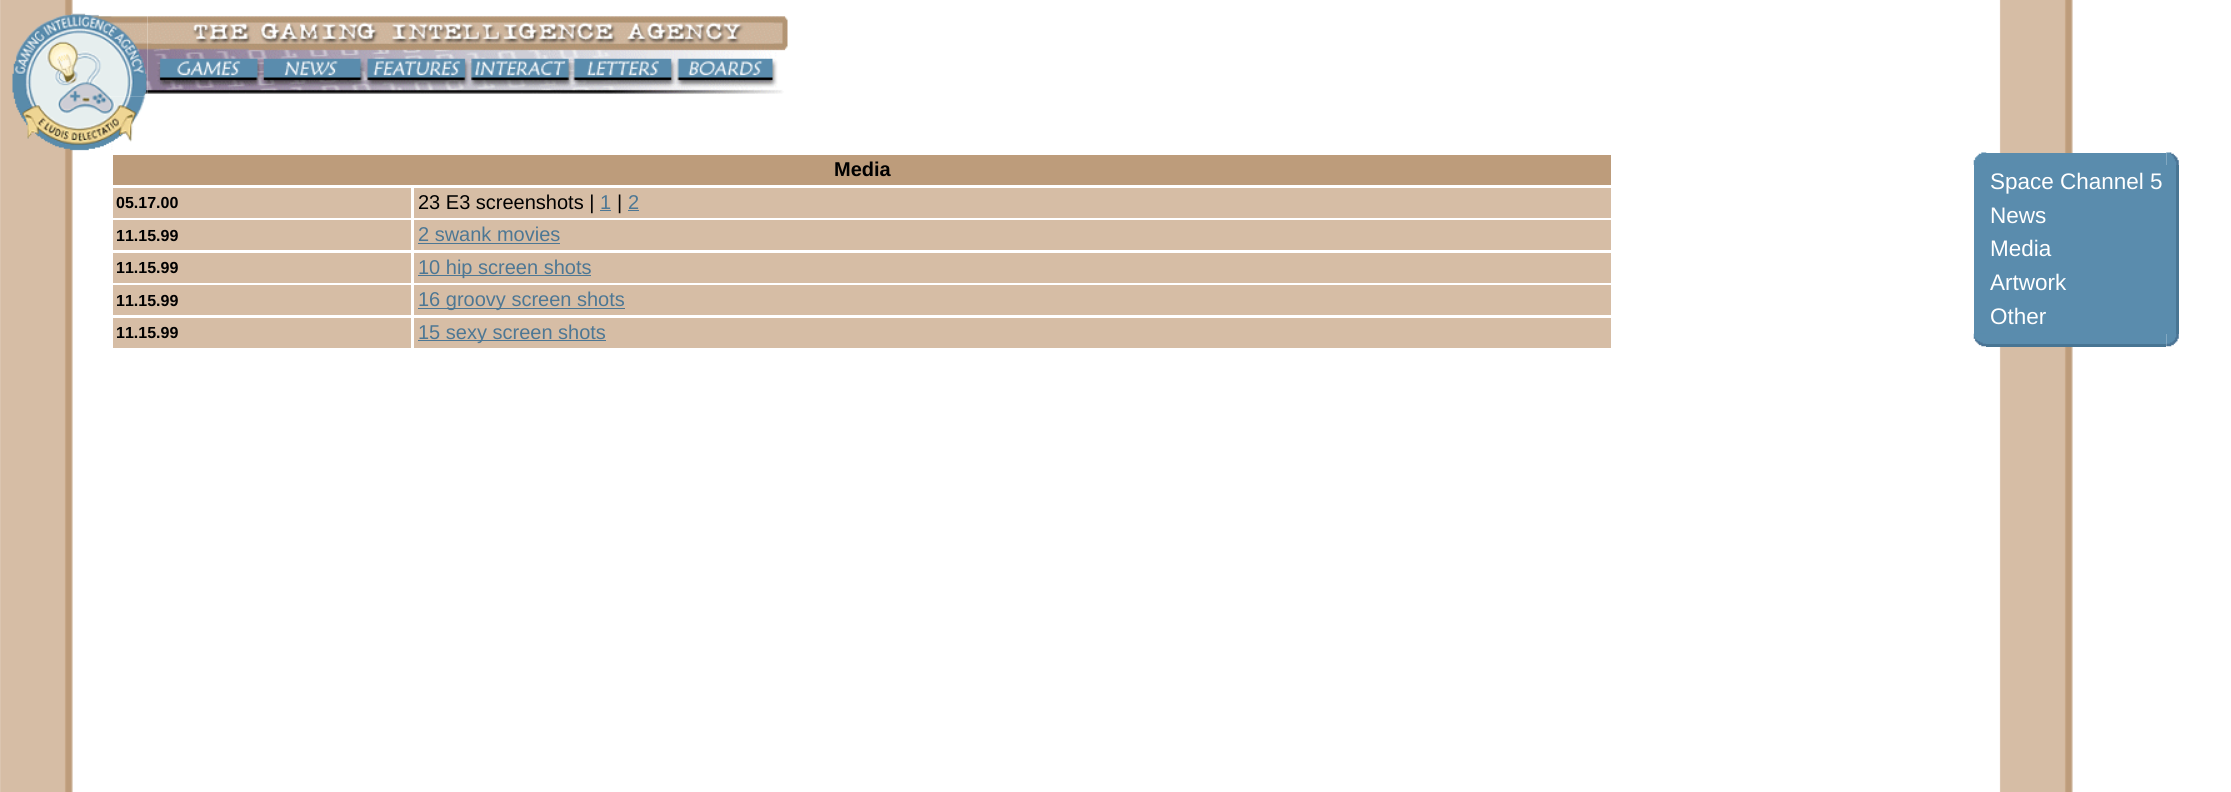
#include <cairo.h>
#include <math.h>
#include <stddef.h>

static cairo_t *ctx;

static void use_color(int r, int g, int b) {
    cairo_set_source_rgb(ctx, r / 255.0, g / 255.0, b / 255.0);
}

static void picture(const char *path, double x, double y, double w, double h) {
    cairo_surface_t *image = cairo_image_surface_create_from_png(path);
    cairo_save(ctx);
    cairo_set_source_surface(ctx, image, x, y);
    cairo_rectangle(ctx, x, y, w, h);
    cairo_fill(ctx);
    cairo_restore(ctx);
    cairo_surface_destroy(image);
}

int main(void) {
    cairo_surface_t *surface = cairo_image_surface_create(CAIRO_FORMAT_RGB24, 2231, 792);
    ctx = cairo_create(surface);
    cairo_font_options_t *options = cairo_font_options_create();
    cairo_font_options_set_hint_metrics(options, CAIRO_HINT_METRICS_OFF);
    cairo_font_options_set_hint_style(options, CAIRO_HINT_STYLE_NONE);
    cairo_set_font_options(ctx, options);
    cairo_set_miter_limit(ctx, 4);
    use_color(255, 255, 255);
    cairo_paint(ctx);
    picture("img1.png", 0, 0, 2073, 792);
    picture("img2.png", 12, 13, 98, 138);
    picture("img3.png", 110, 16, 38, 81);
    picture("img4.png", 147, 16, 641, 79);
    picture("img5.png", 110, 96, 36, 54);
    use_color(189, 156, 123);
    cairo_rectangle(ctx, 113, 155, 1498, 30);
    cairo_fill(ctx);
    cairo_select_font_face(ctx, "Liberation Sans", CAIRO_FONT_SLANT_NORMAL, CAIRO_FONT_WEIGHT_BOLD);
    cairo_set_font_size(ctx, 20);
    use_color(0, 0, 0);
    cairo_move_to(ctx, 834, 176);
    cairo_show_text(ctx, "Media");
    use_color(214, 189, 165);
    cairo_rectangle(ctx, 113, 188, 298, 30);
    cairo_fill(ctx);
    cairo_set_font_size(ctx, 16);
    use_color(0, 0, 0);
    cairo_move_to(ctx, 116, 208);
    cairo_show_text(ctx, "05.17.00");
    use_color(214, 189, 165);
    cairo_rectangle(ctx, 414, 188, 1197, 30);
    cairo_fill(ctx);
    cairo_select_font_face(ctx, "Liberation Sans", CAIRO_FONT_SLANT_NORMAL, CAIRO_FONT_WEIGHT_NORMAL);
    cairo_set_font_size(ctx, 20);
    use_color(0, 0, 0);
    cairo_move_to(ctx, 418, 209);
    cairo_show_text(ctx, "23 E3 screenshots |");
    use_color(77, 119, 148);
    cairo_move_to(ctx, 600, 209);
    cairo_show_text(ctx, "1");
    cairo_rectangle(ctx, 600, 210, 11, 1);
    cairo_fill(ctx);
    use_color(0, 0, 0);
    cairo_move_to(ctx, 617, 209);
    cairo_show_text(ctx, "|");
    use_color(77, 119, 148);
    cairo_move_to(ctx, 628, 209);
    cairo_show_text(ctx, "2");
    cairo_rectangle(ctx, 628, 210, 11, 1);
    cairo_fill(ctx);
    use_color(214, 189, 165);
    cairo_rectangle(ctx, 113, 220, 298, 30);
    cairo_fill(ctx);
    cairo_select_font_face(ctx, "Liberation Sans", CAIRO_FONT_SLANT_NORMAL, CAIRO_FONT_WEIGHT_BOLD);
    cairo_set_font_size(ctx, 16);
    use_color(0, 0, 0);
    cairo_move_to(ctx, 116, 241);
    cairo_show_text(ctx, "11.15.99");
    use_color(214, 189, 165);
    cairo_rectangle(ctx, 414, 220, 1197, 30);
    cairo_fill(ctx);
    cairo_select_font_face(ctx, "Liberation Sans", CAIRO_FONT_SLANT_NORMAL, CAIRO_FONT_WEIGHT_NORMAL);
    cairo_set_font_size(ctx, 20);
    use_color(77, 119, 148);
    cairo_move_to(ctx, 418, 241);
    cairo_show_text(ctx, "2 swank movies");
    cairo_rectangle(ctx, 418, 243, 142, 1);
    cairo_fill(ctx);
    use_color(214, 189, 165);
    cairo_rectangle(ctx, 113, 253, 298, 30);
    cairo_fill(ctx);
    cairo_select_font_face(ctx, "Liberation Sans", CAIRO_FONT_SLANT_NORMAL, CAIRO_FONT_WEIGHT_BOLD);
    cairo_set_font_size(ctx, 16);
    use_color(0, 0, 0);
    cairo_move_to(ctx, 116, 273);
    cairo_show_text(ctx, "11.15.99");
    use_color(214, 189, 165);
    cairo_rectangle(ctx, 414, 253, 1197, 30);
    cairo_fill(ctx);
    use_color(77, 119, 148);
    cairo_rectangle(ctx, 418, 275, 173, 1);
    cairo_fill(ctx);
    cairo_select_font_face(ctx, "Liberation Sans", CAIRO_FONT_SLANT_NORMAL, CAIRO_FONT_WEIGHT_NORMAL);
    cairo_set_font_size(ctx, 20);
    cairo_move_to(ctx, 418, 274);
    cairo_show_text(ctx, "10 hip screen shots");
    use_color(214, 189, 165);
    cairo_rectangle(ctx, 113, 285, 298, 30);
    cairo_fill(ctx);
    cairo_select_font_face(ctx, "Liberation Sans", CAIRO_FONT_SLANT_NORMAL, CAIRO_FONT_WEIGHT_BOLD);
    cairo_set_font_size(ctx, 16);
    use_color(0, 0, 0);
    cairo_move_to(ctx, 116, 306);
    cairo_show_text(ctx, "11.15.99");
    use_color(214, 189, 165);
    cairo_rectangle(ctx, 414, 285, 1197, 30);
    cairo_fill(ctx);
    use_color(77, 119, 148);
    cairo_rectangle(ctx, 418, 308, 207, 1);
    cairo_fill(ctx);
    cairo_select_font_face(ctx, "Liberation Sans", CAIRO_FONT_SLANT_NORMAL, CAIRO_FONT_WEIGHT_NORMAL);
    cairo_set_font_size(ctx, 20);
    cairo_move_to(ctx, 418, 306);
    cairo_show_text(ctx, "16 groovy screen shots");
    use_color(214, 189, 165);
    cairo_rectangle(ctx, 113, 318, 298, 30);
    cairo_fill(ctx);
    cairo_select_font_face(ctx, "Liberation Sans", CAIRO_FONT_SLANT_NORMAL, CAIRO_FONT_WEIGHT_BOLD);
    cairo_set_font_size(ctx, 16);
    use_color(0, 0, 0);
    cairo_move_to(ctx, 116, 338);
    cairo_show_text(ctx, "11.15.99");
    use_color(214, 189, 165);
    cairo_rectangle(ctx, 414, 318, 1197, 30);
    cairo_fill(ctx);
    use_color(77, 119, 148);
    cairo_rectangle(ctx, 418, 340, 188, 1);
    cairo_fill(ctx);
    cairo_select_font_face(ctx, "Liberation Sans", CAIRO_FONT_SLANT_NORMAL, CAIRO_FONT_WEIGHT_NORMAL);
    cairo_set_font_size(ctx, 20);
    cairo_move_to(ctx, 418, 339);
    cairo_show_text(ctx, "15 sexy screen shots");
    use_color(90, 140, 173);
    cairo_rectangle(ctx, 1986, 153, 180, 12);
    cairo_fill(ctx);
    picture("img6.png", 1973, 152, 14, 13);
    picture("img7.png", 2166, 152, 13, 13);
    cairo_rectangle(ctx, 1974, 165, 202, 169);
    cairo_fill(ctx);
    use_color(72, 117, 147);
    cairo_rectangle(ctx, 2176, 165, 3, 169);
    cairo_fill(ctx);
    cairo_set_font_size(ctx, 22.5);
    use_color(255, 255, 255);
    cairo_move_to(ctx, 1990, 189);
    cairo_show_text(ctx, "Space Channel 5");
    cairo_move_to(ctx, 1990, 223);
    cairo_show_text(ctx, "News");
    cairo_move_to(ctx, 1990, 256);
    cairo_show_text(ctx, "Media");
    cairo_move_to(ctx, 1990, 290);
    cairo_show_text(ctx, "Artwork");
    cairo_move_to(ctx, 1990, 324);
    cairo_show_text(ctx, "Other");
    picture("img8.png", 1973, 333, 13, 14);
    use_color(90, 140, 173);
    cairo_rectangle(ctx, 1986, 334, 180, 10);
    cairo_fill(ctx);
    picture("img9.png", 2166, 334, 13, 13);
    use_color(72, 117, 147);
    cairo_rectangle(ctx, 1986, 344, 180, 3);
    cairo_fill(ctx);
    cairo_surface_write_to_png(surface, "result.png");
    cairo_font_options_destroy(options);
    cairo_destroy(ctx);
    cairo_surface_destroy(surface);
    return 0;
}
